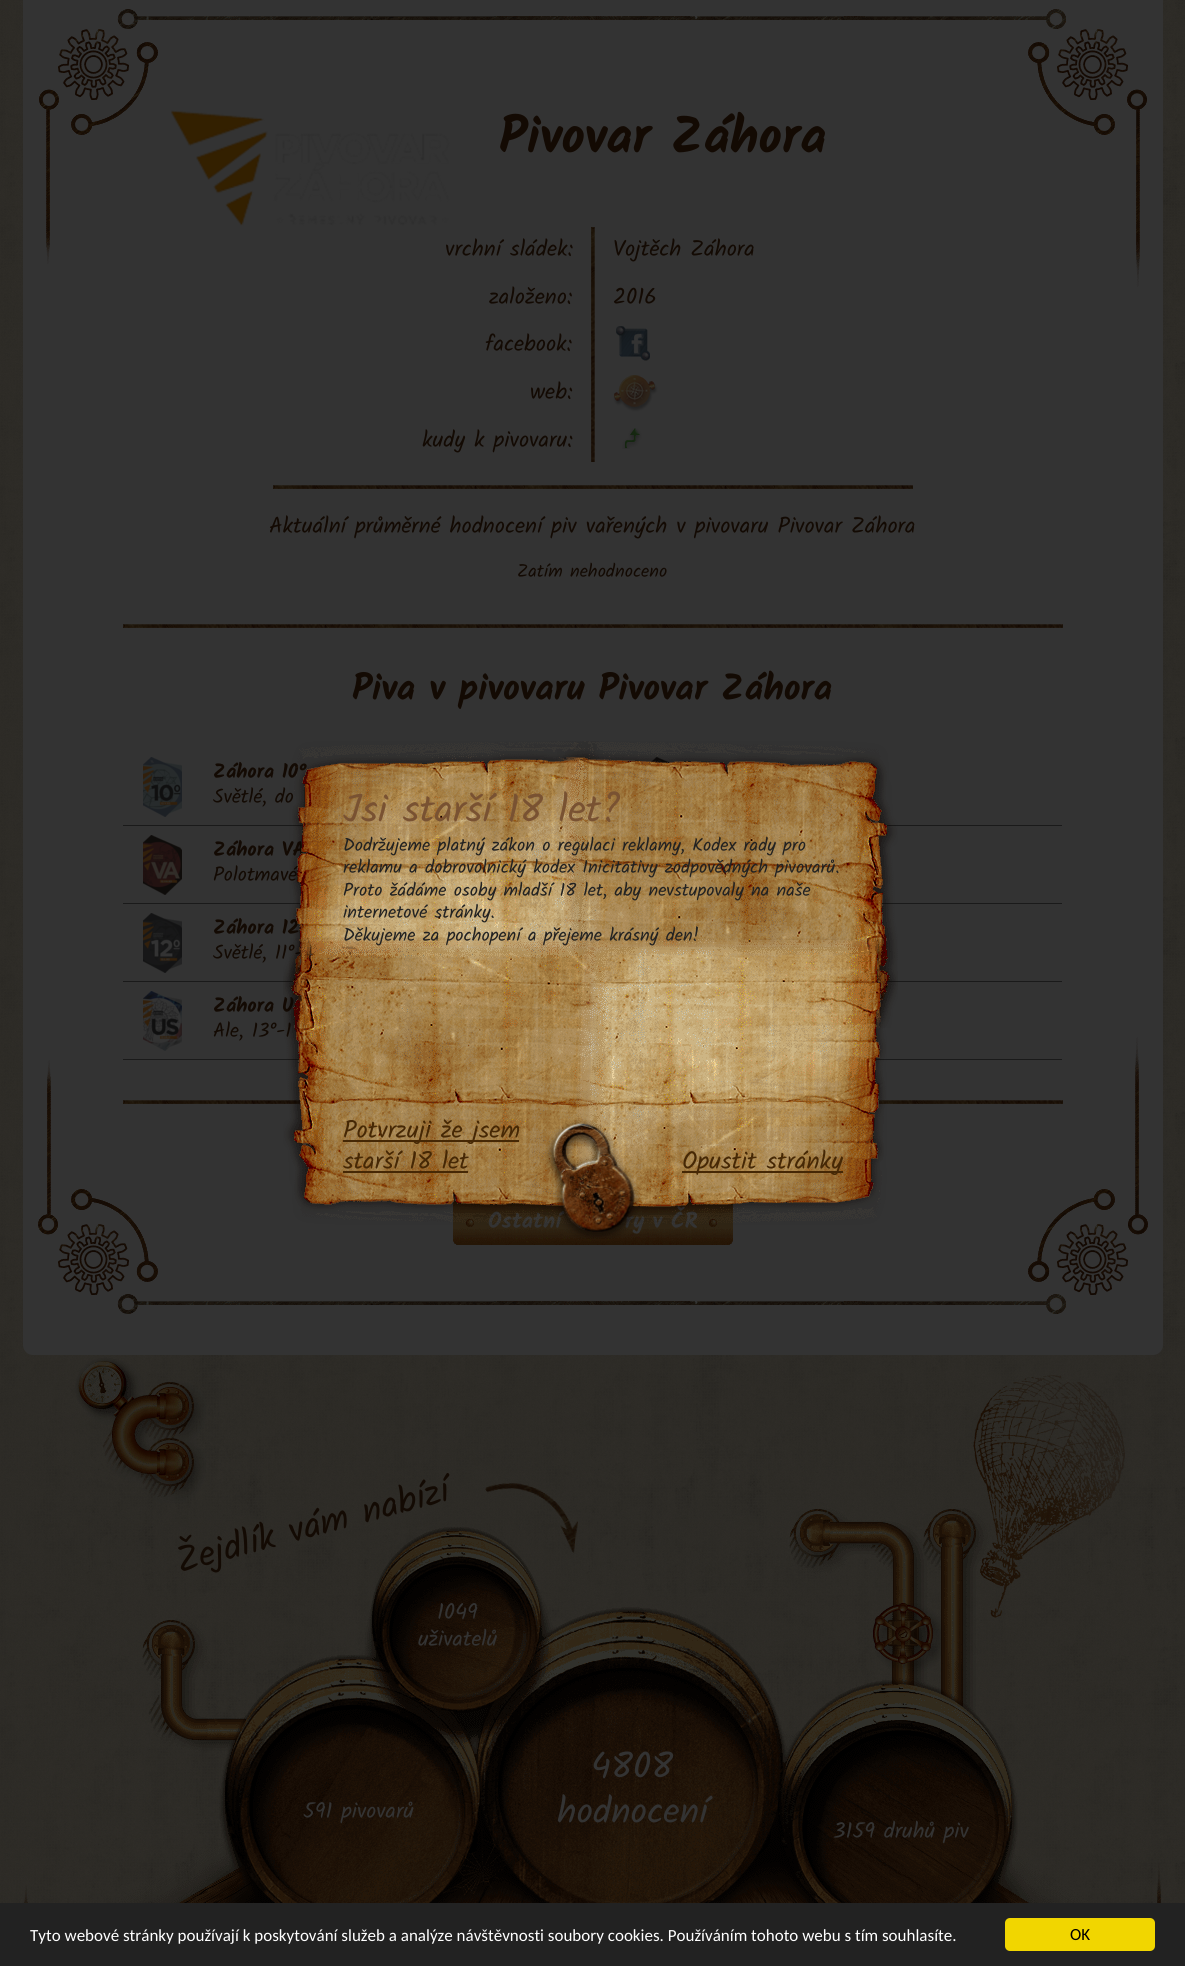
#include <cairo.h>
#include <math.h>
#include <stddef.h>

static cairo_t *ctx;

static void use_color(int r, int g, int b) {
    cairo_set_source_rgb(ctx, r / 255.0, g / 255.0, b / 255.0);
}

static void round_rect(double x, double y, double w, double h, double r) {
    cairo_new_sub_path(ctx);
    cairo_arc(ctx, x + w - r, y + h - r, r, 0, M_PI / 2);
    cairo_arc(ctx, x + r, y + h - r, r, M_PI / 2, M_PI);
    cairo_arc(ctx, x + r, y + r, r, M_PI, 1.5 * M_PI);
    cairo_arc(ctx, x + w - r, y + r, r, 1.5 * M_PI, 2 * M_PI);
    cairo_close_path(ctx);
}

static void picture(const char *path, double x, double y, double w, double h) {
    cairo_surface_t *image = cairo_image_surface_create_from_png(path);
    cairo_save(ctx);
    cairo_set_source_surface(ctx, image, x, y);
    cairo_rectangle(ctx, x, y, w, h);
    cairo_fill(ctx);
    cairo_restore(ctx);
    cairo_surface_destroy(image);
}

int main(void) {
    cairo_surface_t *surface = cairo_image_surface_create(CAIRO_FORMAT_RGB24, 1185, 1966);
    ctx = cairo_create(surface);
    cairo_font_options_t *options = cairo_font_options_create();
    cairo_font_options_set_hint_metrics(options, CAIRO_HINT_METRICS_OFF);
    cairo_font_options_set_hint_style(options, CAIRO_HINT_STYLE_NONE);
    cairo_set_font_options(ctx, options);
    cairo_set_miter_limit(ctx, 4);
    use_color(255, 255, 255);
    cairo_paint(ctx);
    picture("img1.png", 0, 0, 1185, 1903);
    use_color(51, 51, 51);
    round_rect(23, -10, 1140, 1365, 10);
    cairo_fill(ctx);
    picture("img2.png", 117, 9, 529, 20);
    picture("img3.png", 546, 9, 520, 20);
    picture("img6.png", 39, 89, 20, 175);
    picture("img7.png", 71, 42, 87, 93);
    picture("img4.png", 58, 29, 71, 71);
    picture("img8.png", 1028, 42, 87, 93);
    picture("img9.png", 1127, 89, 20, 198);
    picture("img5.png", 1057, 29, 71, 71);
    picture("img10.png", 38, 1060, 20, 175);
    picture("img11.png", 71, 1189, 87, 93);
    picture("img12.png", 1028, 1189, 87, 93);
    picture("img13.png", 1128, 1037, 20, 198);
    picture("img2.png", 117, 1294, 529, 20);
    picture("img14.png", 58, 1224, 71, 71);
    picture("img3.png", 546, 1294, 520, 20);
    picture("img15.png", 1057, 1224, 71, 71);
    picture("img16.png", 171, 110, 279, 116);
    cairo_select_font_face(ctx, "Kalam", CAIRO_FONT_SLANT_NORMAL, CAIRO_FONT_WEIGHT_BOLD);
    cairo_set_font_size(ctx, 51);
    use_color(19, 10, 3);
    cairo_move_to(ctx, 499, 153);
    cairo_show_text(ctx, "Pivovar Záhora");
    cairo_select_font_face(ctx, "Kalam", CAIRO_FONT_SLANT_NORMAL, CAIRO_FONT_WEIGHT_NORMAL);
    cairo_set_font_size(ctx, 22.4);
    cairo_move_to(ctx, 445, 256);
    cairo_show_text(ctx, "vrchní sládek:");
    cairo_move_to(ctx, 489, 304);
    cairo_show_text(ctx, "založeno:");
    cairo_move_to(ctx, 485, 351);
    cairo_show_text(ctx, "facebook:");
    cairo_move_to(ctx, 530, 399);
    cairo_show_text(ctx, "web:");
    cairo_move_to(ctx, 422, 447);
    cairo_show_text(ctx, "kudy k pivovaru:");
    picture("img17.png", 591, 227, 4, 235);
    cairo_move_to(ctx, 613, 256);
    cairo_show_text(ctx, "Vojtěch Záhora");
    cairo_move_to(ctx, 613, 304);
    cairo_show_text(ctx, "2016");
    picture("img18.png", 616, 326, 34, 35);
    picture("img19.png", 613, 375, 45, 37);
    picture("img20.png", 622, 428, 20, 21);
    picture("img21.png", 273, 485, 640, 4);
    cairo_move_to(ctx, 269, 533);
    cairo_show_text(ctx, "Aktuální průměrné hodnocení piv vařených v pivovaru Pivovar Záhora");
    cairo_set_font_size(ctx, 18.2);
    cairo_move_to(ctx, 517, 577);
    cairo_show_text(ctx, "Zatím nehodnoceno");
    picture("img22.png", 123, 624, 940, 4);
    cairo_select_font_face(ctx, "Kalam", CAIRO_FONT_SLANT_NORMAL, CAIRO_FONT_WEIGHT_BOLD);
    cairo_set_font_size(ctx, 36.4);
    cairo_move_to(ctx, 352, 700);
    cairo_show_text(ctx, "Piva v pivovaru Pivovar Záhora");
    picture("img23.png", 143, 757, 39, 60);
    cairo_set_font_size(ctx, 20);
    cairo_move_to(ctx, 213, 778);
    cairo_show_text(ctx, "Záhora 10°");
    cairo_select_font_face(ctx, "Kalam", CAIRO_FONT_SLANT_NORMAL, CAIRO_FONT_WEIGHT_NORMAL);
    cairo_move_to(ctx, 213, 803);
    cairo_show_text(ctx, "Světlé, do");
    use_color(26, 26, 26);
    cairo_rectangle(ctx, 123, 825, 227, 1);
    cairo_fill(ctx);
    picture("img24.png", 638, 757, 36, 47);
    cairo_rectangle(ctx, 635, 825, 427, 1);
    cairo_fill(ctx);
    picture("img25.png", 143, 835, 39, 60);
    cairo_select_font_face(ctx, "Kalam", CAIRO_FONT_SLANT_NORMAL, CAIRO_FONT_WEIGHT_BOLD);
    use_color(19, 10, 3);
    cairo_move_to(ctx, 213, 856);
    cairo_show_text(ctx, "Záhora VA");
    cairo_select_font_face(ctx, "Kalam", CAIRO_FONT_SLANT_NORMAL, CAIRO_FONT_WEIGHT_NORMAL);
    cairo_move_to(ctx, 213, 881);
    cairo_show_text(ctx, "Polotmavé");
    use_color(26, 26, 26);
    cairo_rectangle(ctx, 123, 903, 178, 1);
    cairo_fill(ctx);
    cairo_rectangle(ctx, 761, 903, 301, 1);
    cairo_fill(ctx);
    picture("img26.png", 143, 913, 39, 60);
    cairo_select_font_face(ctx, "Kalam", CAIRO_FONT_SLANT_NORMAL, CAIRO_FONT_WEIGHT_BOLD);
    use_color(19, 10, 3);
    cairo_move_to(ctx, 213, 934);
    cairo_show_text(ctx, "Záhora 12");
    cairo_select_font_face(ctx, "Kalam", CAIRO_FONT_SLANT_NORMAL, CAIRO_FONT_WEIGHT_NORMAL);
    cairo_move_to(ctx, 213, 959);
    cairo_show_text(ctx, "Světlé, 11°-");
    use_color(26, 26, 26);
    cairo_rectangle(ctx, 123, 981, 171, 1);
    cairo_fill(ctx);
    cairo_rectangle(ctx, 887, 981, 175, 1);
    cairo_fill(ctx);
    picture("img27.png", 143, 991, 39, 60);
    cairo_select_font_face(ctx, "Kalam", CAIRO_FONT_SLANT_NORMAL, CAIRO_FONT_WEIGHT_BOLD);
    use_color(19, 10, 3);
    cairo_move_to(ctx, 213, 1012);
    cairo_show_text(ctx, "Záhora U");
    cairo_select_font_face(ctx, "Kalam", CAIRO_FONT_SLANT_NORMAL, CAIRO_FONT_WEIGHT_NORMAL);
    cairo_move_to(ctx, 213, 1037);
    cairo_show_text(ctx, "Ale, 13°-1");
    use_color(26, 26, 26);
    cairo_rectangle(ctx, 123, 1059, 284, 1);
    cairo_fill(ctx);
    cairo_rectangle(ctx, 876, 1059, 186, 1);
    cairo_fill(ctx);
    picture("img22.png", 123, 1100, 940, 4);
    picture("img28.png", 453, 1199, 128, 46);
    picture("img29.png", 581, 1199, 152, 46);
    cairo_select_font_face(ctx, "Kalam", CAIRO_FONT_SLANT_NORMAL, CAIRO_FONT_WEIGHT_BOLD);
    cairo_set_font_size(ctx, 22);
    use_color(51, 51, 51);
    cairo_move_to(ctx, 488, 1228);
    cairo_show_text(ctx, "Ostatní");
    cairo_move_to(ctx, 625, 1228);
    cairo_show_text(ctx, "ry v ČR");
    picture("img30.png", 289, 741, 311, 286);
    picture("img31.png", 557, 741, 341, 288);
    picture("img32.png", 283, 937, 341, 288);
    picture("img33.png", 576, 938, 311, 287);
    cairo_select_font_face(ctx, "Kalam", CAIRO_FONT_SLANT_NORMAL, CAIRO_FONT_WEIGHT_NORMAL);
    cairo_set_font_size(ctx, 39);
    use_color(121, 82, 50);
    cairo_move_to(ctx, 343, 822);
    cairo_show_text(ctx, "Jsi starší 18 let?");
    cairo_set_font_size(ctx, 18.2);
    use_color(34, 34, 34);
    cairo_move_to(ctx, 343, 851);
    cairo_show_text(ctx, "Dodržujeme platný zákon o regulaci reklamy, Kodex rady pro");
    cairo_move_to(ctx, 343, 873);
    cairo_show_text(ctx, "reklamu a dobrovolnický kodex Inicitativy zodpovědných pivovarů.");
    cairo_move_to(ctx, 343, 896);
    cairo_show_text(ctx, "Proto žádáme osoby mladší 18 let, aby nevstupovaly na naše");
    cairo_move_to(ctx, 343, 918);
    cairo_show_text(ctx, "internetové stránky.");
    cairo_move_to(ctx, 343, 941);
    cairo_show_text(ctx, "Děkujeme za pochopení a přejeme krásný den!");
    use_color(70, 40, 5);
    cairo_rectangle(ctx, 343, 1140, 176, 2);
    cairo_fill(ctx);
    cairo_set_font_size(ctx, 24.75);
    cairo_move_to(ctx, 343, 1138);
    cairo_show_text(ctx, "Potvrzuji že jsem");
    cairo_move_to(ctx, 343, 1169);
    cairo_show_text(ctx, "starší 18 let");
    cairo_rectangle(ctx, 343, 1171, 125, 2);
    cairo_fill(ctx);
    cairo_rectangle(ctx, 682, 1171, 161, 2);
    cairo_fill(ctx);
    cairo_move_to(ctx, 682, 1169);
    cairo_show_text(ctx, "Opustit stránky");
    picture("img34.png", 545, 1119, 95, 120);
    picture("img35.png", 75, 1357, 131, 146);
    picture("img36.png", 98, 1371, 10, 24);
    picture("img40.png", 973, 1375, 153, 243);
    picture("img38.png", 112, 1508, 979, 395);
    cairo_set_font_size(ctx, 36.4);
    use_color(19, 10, 3);
    cairo_save(ctx);
    cairo_translate(ctx, 180, 1573);
    cairo_rotate(ctx, -15 * M_PI / 180);
    cairo_move_to(ctx, 0, 0);
    cairo_show_text(ctx, "Žejdlík vám nabízí");
    cairo_restore(ctx);
    picture("img37.png", 485, 1482, 93, 71);
    cairo_set_font_size(ctx, 22);
    use_color(51, 51, 51);
    cairo_move_to(ctx, 437, 1619);
    cairo_show_text(ctx, "1049");
    cairo_move_to(ctx, 418, 1646);
    cairo_show_text(ctx, "uživatelů");
    picture("img39.png", 873, 1603, 73, 71);
    cairo_move_to(ctx, 303, 1818);
    cairo_show_text(ctx, "591 pivovarů");
    cairo_set_font_size(ctx, 36.4);
    cairo_move_to(ctx, 591, 1778);
    cairo_show_text(ctx, "4808");
    cairo_move_to(ctx, 557, 1823);
    cairo_show_text(ctx, "hodnocení");
    cairo_set_font_size(ctx, 22);
    cairo_move_to(ctx, 833, 1838);
    cairo_show_text(ctx, "3159 druhů piv");
    picture("img41.png", 24, 1885, 4, 18);
    picture("img42.png", 1157, 1862, 4, 41);
    use_color(34, 34, 34);
    cairo_rectangle(ctx, 0, 1903, 1185, 63);
    cairo_fill(ctx);
    cairo_select_font_face(ctx, "Carlito", CAIRO_FONT_SLANT_NORMAL, CAIRO_FONT_WEIGHT_NORMAL);
    cairo_set_font_size(ctx, 17);
    use_color(255, 255, 255);
    cairo_move_to(ctx, 30, 1941);
    cairo_show_text(ctx, "Tyto webové stránky používají k poskytování služeb a analýze návštěvnosti soubory cookies. Používáním tohoto webu s tím souhlasíte.");
    use_color(241, 214, 0);
    round_rect(1005, 1918, 150, 33, 5);
    cairo_fill(ctx);
    use_color(0, 0, 0);
    cairo_move_to(ctx, 1070, 1940);
    cairo_show_text(ctx, "OK");
    cairo_surface_write_to_png(surface, "result.png");
    cairo_font_options_destroy(options);
    cairo_destroy(ctx);
    cairo_surface_destroy(surface);
    return 0;
}
